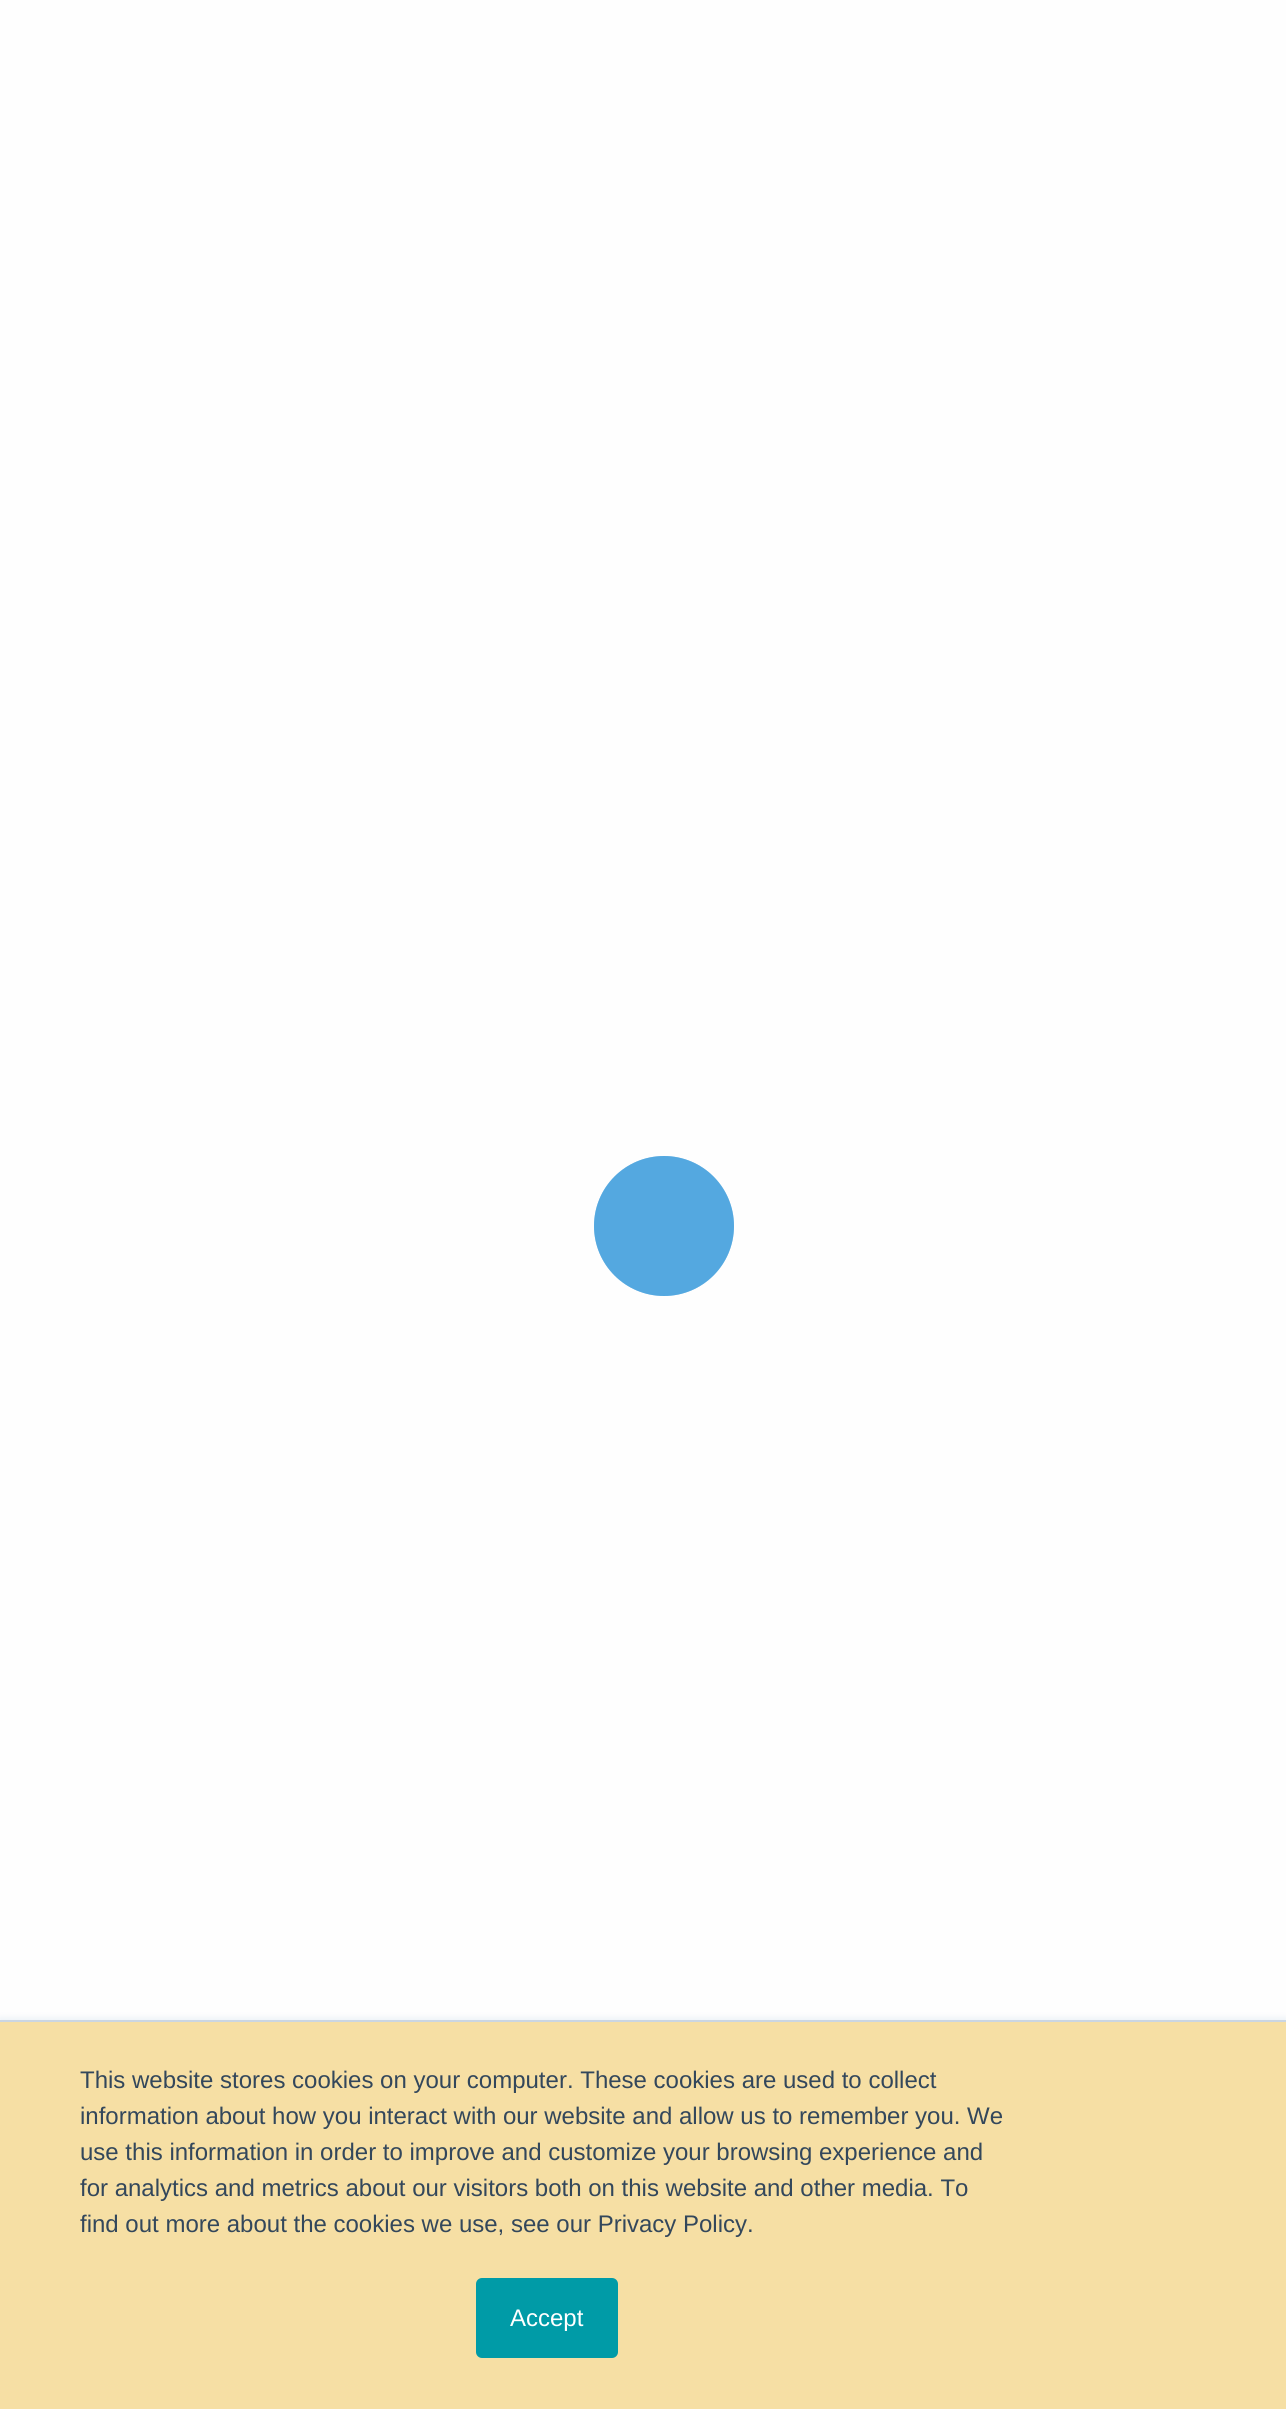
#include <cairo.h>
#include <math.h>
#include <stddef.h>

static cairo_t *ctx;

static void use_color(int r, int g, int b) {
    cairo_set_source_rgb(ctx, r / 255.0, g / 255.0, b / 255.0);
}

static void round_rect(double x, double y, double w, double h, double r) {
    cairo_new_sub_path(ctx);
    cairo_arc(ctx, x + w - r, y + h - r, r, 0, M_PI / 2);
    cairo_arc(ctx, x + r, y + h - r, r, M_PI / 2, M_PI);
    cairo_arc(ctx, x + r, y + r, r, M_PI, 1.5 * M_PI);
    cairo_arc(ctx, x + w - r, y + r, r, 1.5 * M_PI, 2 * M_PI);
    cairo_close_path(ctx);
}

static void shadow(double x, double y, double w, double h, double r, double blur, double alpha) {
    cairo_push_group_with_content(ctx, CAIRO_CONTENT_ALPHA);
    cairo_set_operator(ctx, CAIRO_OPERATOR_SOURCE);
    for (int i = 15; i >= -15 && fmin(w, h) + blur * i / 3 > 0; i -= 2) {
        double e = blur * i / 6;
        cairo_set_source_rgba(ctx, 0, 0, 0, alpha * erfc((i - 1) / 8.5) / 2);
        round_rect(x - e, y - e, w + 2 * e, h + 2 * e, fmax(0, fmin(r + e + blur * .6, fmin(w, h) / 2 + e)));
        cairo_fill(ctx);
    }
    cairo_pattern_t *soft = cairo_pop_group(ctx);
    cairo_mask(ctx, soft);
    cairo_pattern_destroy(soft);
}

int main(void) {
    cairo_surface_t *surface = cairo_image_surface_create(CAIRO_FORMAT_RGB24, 1286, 2409);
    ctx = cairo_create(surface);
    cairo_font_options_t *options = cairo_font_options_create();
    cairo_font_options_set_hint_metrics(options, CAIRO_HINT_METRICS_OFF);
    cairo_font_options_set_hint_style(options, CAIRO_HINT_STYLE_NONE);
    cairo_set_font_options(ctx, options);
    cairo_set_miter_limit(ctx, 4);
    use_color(254, 254, 254);
    cairo_paint(ctx);
    use_color(133, 193, 233);
    cairo_arc(ctx, 664, 1226, 70, 0, 2 * M_PI);
    cairo_fill(ctx);
    cairo_set_source_rgba(ctx, 0.204, 0.596, 0.859, 0.6);
    cairo_arc(ctx, 664, 1226, 70, 0, 2 * M_PI);
    cairo_fill(ctx);
    use_color(234, 240, 246);
    shadow(0, 2018, 1286, 390, 0, 3, 1);
    use_color(246, 223, 164);
    cairo_rectangle(ctx, 0, 2022, 1286, 387);
    cairo_fill(ctx);
    use_color(203, 214, 226);
    cairo_rectangle(ctx, 0, 2020, 1286, 2);
    cairo_fill(ctx);
    cairo_select_font_face(ctx, "Liberation Sans", CAIRO_FONT_SLANT_NORMAL, CAIRO_FONT_WEIGHT_NORMAL);
    cairo_set_font_size(ctx, 24);
    use_color(51, 71, 91);
    cairo_move_to(ctx, 80, 2088);
    cairo_show_text(ctx, "This website stores cookies on your computer. These cookies are used to collect");
    cairo_move_to(ctx, 80, 2124);
    cairo_show_text(ctx, "information about how you interact with our website and allow us to remember you. We");
    cairo_move_to(ctx, 80, 2160);
    cairo_show_text(ctx, "use this information in order to improve and customize your browsing experience and");
    cairo_move_to(ctx, 80, 2196);
    cairo_show_text(ctx, "for analytics and metrics about our visitors both on this website and other media. To");
    cairo_move_to(ctx, 80, 2232);
    cairo_show_text(ctx, "find out more about the cookies we use, see our Privacy Policy.");
    use_color(0, 155, 167);
    round_rect(477, 2279, 140, 78, 5);
    cairo_fill_preserve(ctx);
    cairo_stroke(ctx);
    use_color(255, 255, 255);
    cairo_move_to(ctx, 510, 2326);
    cairo_show_text(ctx, "Accept");
    cairo_surface_write_to_png(surface, "result.png");
    cairo_font_options_destroy(options);
    cairo_destroy(ctx);
    cairo_surface_destroy(surface);
    return 0;
}
